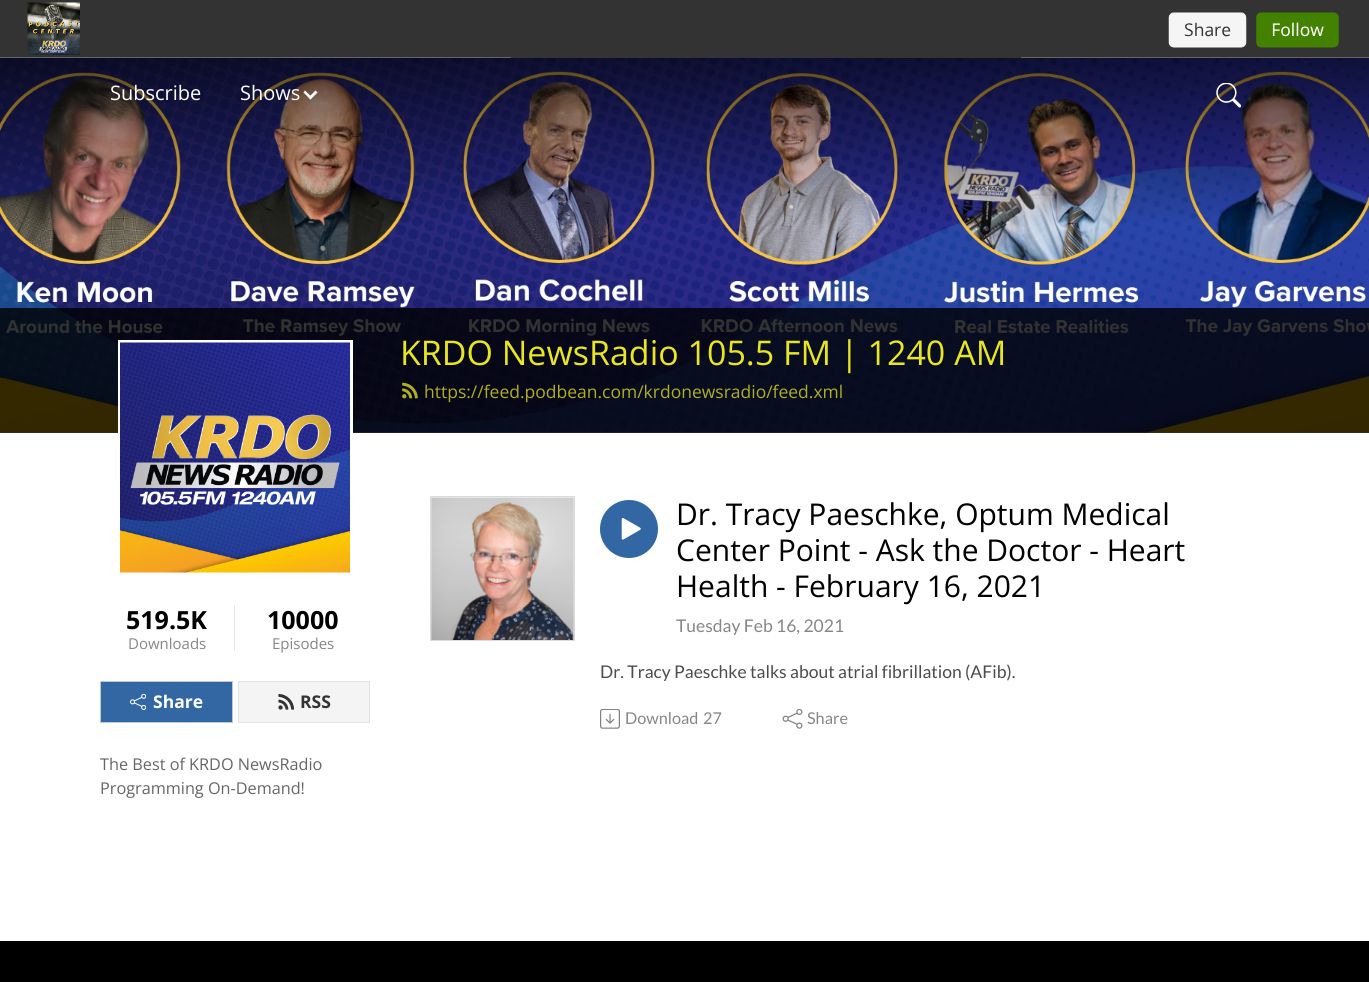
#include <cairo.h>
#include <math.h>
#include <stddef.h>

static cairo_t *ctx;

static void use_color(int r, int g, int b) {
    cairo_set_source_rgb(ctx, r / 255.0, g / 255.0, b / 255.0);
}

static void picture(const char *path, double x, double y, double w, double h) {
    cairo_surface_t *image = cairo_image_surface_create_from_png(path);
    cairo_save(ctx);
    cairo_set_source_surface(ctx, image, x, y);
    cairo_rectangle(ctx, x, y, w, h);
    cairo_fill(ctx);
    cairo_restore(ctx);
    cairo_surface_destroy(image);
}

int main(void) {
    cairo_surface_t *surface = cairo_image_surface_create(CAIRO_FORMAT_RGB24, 1369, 982);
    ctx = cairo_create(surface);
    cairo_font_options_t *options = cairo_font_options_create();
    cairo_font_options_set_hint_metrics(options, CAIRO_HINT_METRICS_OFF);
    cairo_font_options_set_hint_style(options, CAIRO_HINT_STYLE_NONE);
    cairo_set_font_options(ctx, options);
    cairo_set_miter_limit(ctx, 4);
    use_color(255, 255, 255);
    cairo_paint(ctx);
    use_color(51, 51, 51);
    cairo_rectangle(ctx, 0, 0, 1369, 2);
    cairo_fill(ctx);
    picture("img1.png", 0, 2, 1369, 56);
    picture("img3.png", 0, 58, 1369, 375);
    cairo_select_font_face(ctx, "Open Sans", CAIRO_FONT_SLANT_NORMAL, CAIRO_FONT_WEIGHT_NORMAL);
    cairo_set_font_size(ctx, 20);
    use_color(255, 255, 255);
    cairo_move_to(ctx, 110, 100);
    cairo_show_text(ctx, "Subscribe");
    cairo_move_to(ctx, 240, 100);
    cairo_show_text(ctx, "Shows");
    cairo_new_path(ctx);
    cairo_move_to(ctx, 315.5, 90.5);
    cairo_line_to(ctx, 317.5, 92.5);
    cairo_line_to(ctx, 310.5, 99.5);
    cairo_line_to(ctx, 308.5, 97.5);
    cairo_close_path(ctx);
    cairo_fill(ctx);
    cairo_new_path(ctx);
    cairo_move_to(ctx, 305, 90.5);
    cairo_line_to(ctx, 312, 97.5);
    cairo_line_to(ctx, 310.5, 99.5);
    cairo_line_to(ctx, 303.5, 92.5);
    cairo_close_path(ctx);
    cairo_fill(ctx);
    picture("img2.png", 1216, 83, 25, 25);
    cairo_set_source_rgba(ctx, 0, 0, 0, 0.8);
    cairo_rectangle(ctx, 0, 308, 1369, 125);
    cairo_fill(ctx);
    cairo_set_font_size(ctx, 34);
    use_color(232, 229, 36);
    cairo_move_to(ctx, 400, 365);
    cairo_show_text(ctx, "KRDO NewsRadio 105.5 FM | 1240 AM");
    picture("img4.png", 402, 382, 16, 17);
    cairo_set_font_size(ctx, 17.5);
    use_color(176, 174, 34);
    cairo_move_to(ctx, 424, 398);
    cairo_show_text(ctx, "https://feed.podbean.com/krdonewsradio/feed.xml");
    cairo_rectangle(ctx, 119.5, 341.5, 232, 232);
    use_color(255, 255, 255);
    cairo_set_line_width(ctx, 3);
    cairo_stroke(ctx);
    picture("img5.png", 120, 342, 230, 231);
    cairo_select_font_face(ctx, "Open Sans", CAIRO_FONT_SLANT_NORMAL, CAIRO_FONT_WEIGHT_BOLD);
    cairo_set_font_size(ctx, 25);
    use_color(0, 0, 0);
    cairo_move_to(ctx, 126, 629);
    cairo_show_text(ctx, "519.5K");
    cairo_select_font_face(ctx, "Open Sans", CAIRO_FONT_SLANT_NORMAL, CAIRO_FONT_WEIGHT_NORMAL);
    cairo_set_font_size(ctx, 15);
    use_color(134, 134, 134);
    cairo_move_to(ctx, 128, 649);
    cairo_show_text(ctx, "Downloads");
    use_color(230, 230, 230);
    cairo_rectangle(ctx, 234, 605, 1, 46);
    cairo_fill(ctx);
    cairo_select_font_face(ctx, "Open Sans", CAIRO_FONT_SLANT_NORMAL, CAIRO_FONT_WEIGHT_BOLD);
    cairo_set_font_size(ctx, 25);
    use_color(0, 0, 0);
    cairo_move_to(ctx, 267, 629);
    cairo_show_text(ctx, "10000");
    cairo_select_font_face(ctx, "Open Sans", CAIRO_FONT_SLANT_NORMAL, CAIRO_FONT_WEIGHT_NORMAL);
    cairo_set_font_size(ctx, 15);
    use_color(134, 134, 134);
    cairo_move_to(ctx, 272, 649);
    cairo_show_text(ctx, "Episodes");
    use_color(50, 103, 163);
    cairo_rectangle(ctx, 100.5, 681.5, 132, 41);
    cairo_fill_preserve(ctx);
    use_color(191, 201, 213);
    cairo_set_line_width(ctx, 1);
    cairo_stroke(ctx);
    picture("img6.png", 130, 694, 16, 16);
    cairo_select_font_face(ctx, "Open Sans", CAIRO_FONT_SLANT_NORMAL, CAIRO_FONT_WEIGHT_BOLD);
    cairo_set_font_size(ctx, 17.5);
    use_color(255, 255, 255);
    cairo_move_to(ctx, 153, 708);
    cairo_show_text(ctx, "Share");
    use_color(244, 244, 244);
    cairo_rectangle(ctx, 238.5, 681.5, 131, 41);
    cairo_fill_preserve(ctx);
    use_color(226, 226, 226);
    cairo_stroke(ctx);
    picture("img7.png", 278, 693, 17, 17);
    use_color(51, 51, 51);
    cairo_move_to(ctx, 300, 708);
    cairo_show_text(ctx, "RSS");
    cairo_select_font_face(ctx, "Open Sans", CAIRO_FONT_SLANT_NORMAL, CAIRO_FONT_WEIGHT_NORMAL);
    cairo_set_font_size(ctx, 16.25);
    use_color(100, 102, 105);
    cairo_move_to(ctx, 100, 770);
    cairo_show_text(ctx, "The Best of KRDO NewsRadio");
    cairo_move_to(ctx, 100, 794);
    cairo_show_text(ctx, "Programming On-Demand!");
    cairo_rectangle(ctx, 430.5, 496.5, 144, 144);
    use_color(218, 218, 218);
    cairo_stroke(ctx);
    picture("img8.png", 431, 497, 143, 143);
    use_color(50, 103, 163);
    cairo_arc(ctx, 629, 529, 29, 0, 2 * M_PI);
    cairo_fill(ctx);
    picture("img9.png", 621, 518, 20, 22);
    cairo_set_font_size(ctx, 30);
    use_color(0, 0, 0);
    cairo_move_to(ctx, 676, 525);
    cairo_show_text(ctx, "Dr. Tracy Paeschke, Optum Medical");
    cairo_move_to(ctx, 676, 561);
    cairo_show_text(ctx, "Center Point - Ask the Doctor - Heart");
    cairo_move_to(ctx, 676, 597);
    cairo_show_text(ctx, "Health - February 16, 2021");
    cairo_select_font_face(ctx, "Lato", CAIRO_FONT_SLANT_NORMAL, CAIRO_FONT_WEIGHT_NORMAL);
    cairo_set_font_size(ctx, 17.5);
    use_color(134, 134, 134);
    cairo_move_to(ctx, 676, 632);
    cairo_show_text(ctx, "Tuesday Feb 16, 2021");
    use_color(76, 76, 76);
    cairo_move_to(ctx, 600, 678);
    cairo_show_text(ctx, "Dr. Tracy Paeschke talks about atrial fibrillation (AFib).");
    picture("img10.png", 600, 709, 20, 20);
    cairo_set_font_size(ctx, 16.25);
    use_color(134, 134, 134);
    cairo_move_to(ctx, 625, 724);
    cairo_show_text(ctx, "Download");
    cairo_move_to(ctx, 703, 724);
    cairo_show_text(ctx, "27");
    picture("img11.png", 782, 709, 21, 20);
    cairo_move_to(ctx, 807, 724);
    cairo_show_text(ctx, "Share");
    use_color(0, 0, 0);
    cairo_rectangle(ctx, 0, 941, 1369, 41);
    cairo_fill(ctx);
    cairo_surface_write_to_png(surface, "result.png");
    cairo_font_options_destroy(options);
    cairo_destroy(ctx);
    cairo_surface_destroy(surface);
    return 0;
}
